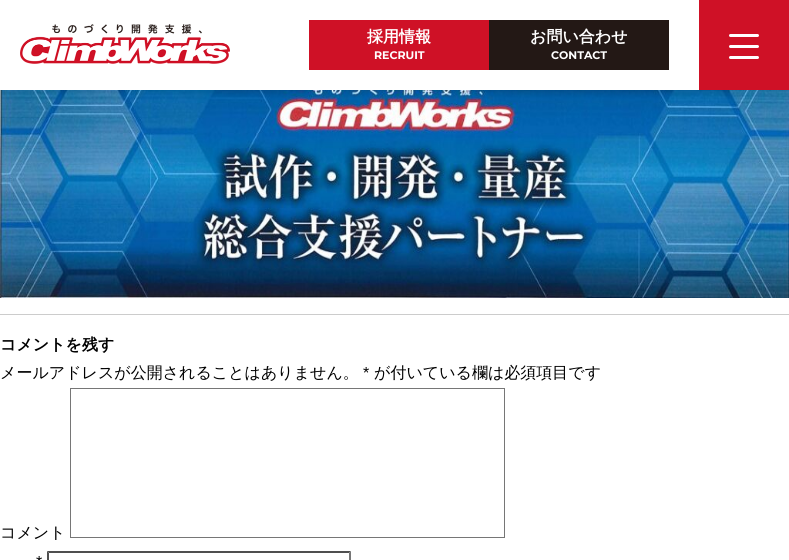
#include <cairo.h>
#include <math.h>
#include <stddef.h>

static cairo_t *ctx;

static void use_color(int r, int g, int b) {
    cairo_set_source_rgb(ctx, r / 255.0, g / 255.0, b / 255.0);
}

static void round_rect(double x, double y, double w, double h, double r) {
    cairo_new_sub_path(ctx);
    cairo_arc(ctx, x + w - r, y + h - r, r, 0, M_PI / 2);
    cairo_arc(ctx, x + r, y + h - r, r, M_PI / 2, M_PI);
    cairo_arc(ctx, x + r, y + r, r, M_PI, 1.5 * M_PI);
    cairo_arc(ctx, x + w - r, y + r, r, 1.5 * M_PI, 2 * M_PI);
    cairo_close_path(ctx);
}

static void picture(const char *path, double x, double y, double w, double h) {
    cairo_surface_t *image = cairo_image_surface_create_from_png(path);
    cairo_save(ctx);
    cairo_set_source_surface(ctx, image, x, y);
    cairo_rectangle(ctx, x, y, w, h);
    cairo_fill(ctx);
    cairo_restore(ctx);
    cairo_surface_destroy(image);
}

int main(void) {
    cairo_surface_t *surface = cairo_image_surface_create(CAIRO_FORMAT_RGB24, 789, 560);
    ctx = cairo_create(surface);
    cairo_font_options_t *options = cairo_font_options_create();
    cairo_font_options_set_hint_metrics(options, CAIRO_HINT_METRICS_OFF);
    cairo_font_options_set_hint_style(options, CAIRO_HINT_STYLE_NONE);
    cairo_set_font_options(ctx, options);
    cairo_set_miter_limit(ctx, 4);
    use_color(255, 255, 255);
    cairo_paint(ctx);
    picture("img1.png", 20, 24, 210, 40);
    use_color(207, 17, 38);
    cairo_rectangle(ctx, 309, 20, 180, 50);
    cairo_fill(ctx);
    cairo_select_font_face(ctx, "WenQuanYi Zen Hei", CAIRO_FONT_SLANT_NORMAL, CAIRO_FONT_WEIGHT_BOLD);
    cairo_set_font_size(ctx, 16);
    use_color(255, 255, 255);
    cairo_move_to(ctx, 367, 42);
    cairo_show_text(ctx, "採用情報");
    cairo_select_font_face(ctx, "Montserrat", CAIRO_FONT_SLANT_NORMAL, CAIRO_FONT_WEIGHT_BOLD);
    cairo_set_font_size(ctx, 11);
    cairo_move_to(ctx, 374, 59);
    cairo_show_text(ctx, "RECRUIT");
    use_color(35, 24, 21);
    cairo_rectangle(ctx, 489, 20, 180, 50);
    cairo_fill(ctx);
    cairo_select_font_face(ctx, "WenQuanYi Zen Hei", CAIRO_FONT_SLANT_NORMAL, CAIRO_FONT_WEIGHT_BOLD);
    cairo_set_font_size(ctx, 16);
    use_color(255, 255, 255);
    cairo_move_to(ctx, 530, 42);
    cairo_show_text(ctx, "お問い合わせ");
    cairo_select_font_face(ctx, "Montserrat", CAIRO_FONT_SLANT_NORMAL, CAIRO_FONT_WEIGHT_BOLD);
    cairo_set_font_size(ctx, 11);
    cairo_move_to(ctx, 551, 59);
    cairo_show_text(ctx, "CONTACT");
    use_color(207, 17, 38);
    cairo_rectangle(ctx, 699, 0, 90, 90);
    cairo_fill(ctx);
    use_color(255, 255, 255);
    round_rect(729, 34, 30, 3, 1.5);
    cairo_fill(ctx);
    round_rect(729, 45, 30, 3, 1.5);
    cairo_fill(ctx);
    round_rect(729, 56, 30, 3, 1.5);
    cairo_fill(ctx);
    picture("img2.png", 0, 90, 789, 208);
    use_color(204, 204, 204);
    cairo_rectangle(ctx, 0, 314, 789, 1);
    cairo_fill(ctx);
    cairo_select_font_face(ctx, "WenQuanYi Zen Hei", CAIRO_FONT_SLANT_NORMAL, CAIRO_FONT_WEIGHT_BOLD);
    cairo_set_font_size(ctx, 16);
    use_color(0, 0, 0);
    cairo_move_to(ctx, 0, 350);
    cairo_show_text(ctx, "コメントを残す");
    cairo_select_font_face(ctx, "WenQuanYi Zen Hei Medium", CAIRO_FONT_SLANT_NORMAL, CAIRO_FONT_WEIGHT_NORMAL);
    cairo_move_to(ctx, 0, 378);
    cairo_show_text(ctx, "メールアドレスが公開されることはありません。");
    cairo_select_font_face(ctx, "Liberation Sans", CAIRO_FONT_SLANT_NORMAL, CAIRO_FONT_WEIGHT_NORMAL);
    cairo_move_to(ctx, 363, 378);
    cairo_show_text(ctx, "*");
    cairo_select_font_face(ctx, "WenQuanYi Zen Hei Medium", CAIRO_FONT_SLANT_NORMAL, CAIRO_FONT_WEIGHT_NORMAL);
    cairo_move_to(ctx, 374, 378);
    cairo_show_text(ctx, "が付いている欄は必須項目です");
    cairo_move_to(ctx, 0, 538);
    cairo_show_text(ctx, "コメント");
    cairo_rectangle(ctx, 70.5, 388.5, 434, 149);
    use_color(118, 118, 118);
    cairo_set_line_width(ctx, 1);
    cairo_stroke(ctx);
    cairo_select_font_face(ctx, "Liberation Sans", CAIRO_FONT_SLANT_NORMAL, CAIRO_FONT_WEIGHT_NORMAL);
    use_color(0, 0, 0);
    cairo_move_to(ctx, 36, 567);
    cairo_show_text(ctx, "*");
    use_color(79, 79, 79);
    cairo_new_path(ctx);
    cairo_move_to(ctx, 47, 551);
    cairo_line_to(ctx, 351, 551);
    cairo_line_to(ctx, 349, 553);
    cairo_line_to(ctx, 49, 553);
    cairo_close_path(ctx);
    cairo_fill(ctx);
    use_color(118, 118, 118);
    cairo_new_path(ctx);
    cairo_move_to(ctx, 351, 551);
    cairo_line_to(ctx, 351, 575);
    cairo_line_to(ctx, 349, 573);
    cairo_line_to(ctx, 349, 553);
    cairo_close_path(ctx);
    cairo_fill(ctx);
    use_color(79, 79, 79);
    cairo_new_path(ctx);
    cairo_move_to(ctx, 47, 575);
    cairo_line_to(ctx, 47, 551);
    cairo_line_to(ctx, 49, 553);
    cairo_line_to(ctx, 49, 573);
    cairo_close_path(ctx);
    cairo_fill(ctx);
    cairo_surface_write_to_png(surface, "result.png");
    cairo_font_options_destroy(options);
    cairo_destroy(ctx);
    cairo_surface_destroy(surface);
    return 0;
}
